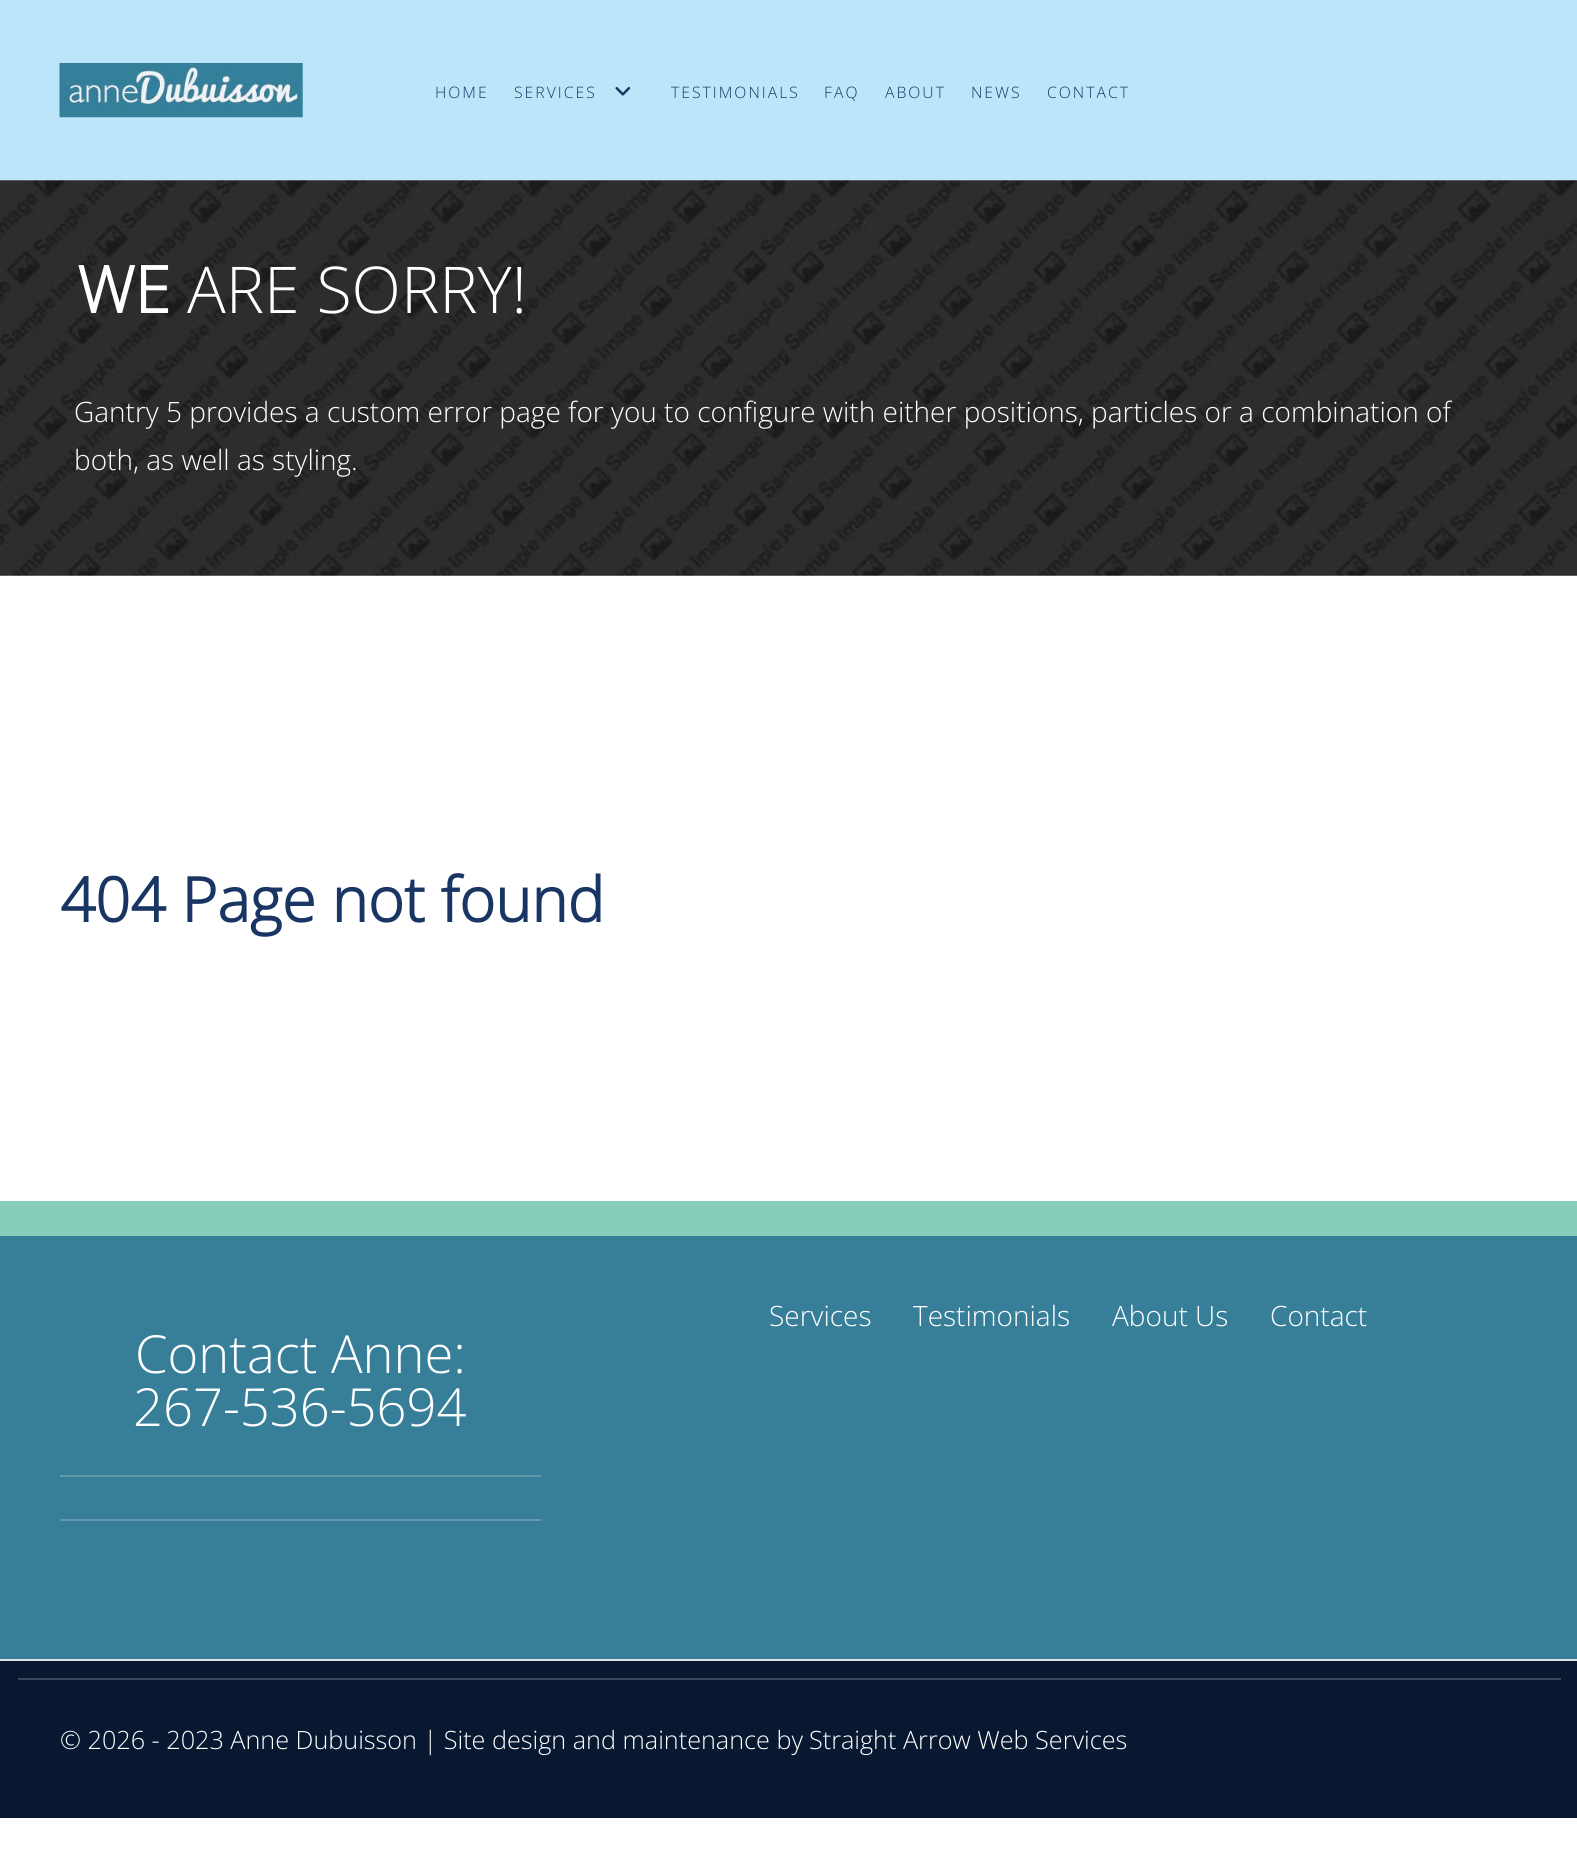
#include <cairo.h>
#include <math.h>
#include <stddef.h>

static cairo_t *ctx;

static void use_color(int r, int g, int b) {
    cairo_set_source_rgb(ctx, r / 255.0, g / 255.0, b / 255.0);
}

static void spaced_text(double x, double y, const char *s, double letter, double word) {
    cairo_move_to(ctx, x, y);
    while (*s) {
        char ch[5] = {0};
        int n = 0;
        do ch[n++] = *s++; while ((*s & 0xC0) == 0x80);
        cairo_show_text(ctx, ch);
        cairo_rel_move_to(ctx, letter + word * (*ch == ' '), 0);
    }
}

static void picture(const char *path, double x, double y, double w, double h) {
    cairo_surface_t *image = cairo_image_surface_create_from_png(path);
    cairo_save(ctx);
    cairo_set_source_surface(ctx, image, x, y);
    cairo_rectangle(ctx, x, y, w, h);
    cairo_fill(ctx);
    cairo_restore(ctx);
    cairo_surface_destroy(image);
}

int main(void) {
    cairo_surface_t *surface = cairo_image_surface_create(CAIRO_FORMAT_RGB24, 1577, 1874);
    ctx = cairo_create(surface);
    cairo_font_options_t *options = cairo_font_options_create();
    cairo_font_options_set_hint_metrics(options, CAIRO_HINT_METRICS_OFF);
    cairo_font_options_set_hint_style(options, CAIRO_HINT_STYLE_NONE);
    cairo_set_font_options(ctx, options);
    cairo_set_miter_limit(ctx, 4);
    use_color(255, 255, 255);
    cairo_paint(ctx);
    use_color(187, 230, 249);
    cairo_rectangle(ctx, 0, 0, 1577, 180);
    cairo_fill(ctx);
    picture("img1.png", 59, 63, 244, 55);
    cairo_select_font_face(ctx, "Open Sans Light", CAIRO_FONT_SLANT_NORMAL, CAIRO_FONT_WEIGHT_NORMAL);
    cairo_set_font_size(ctx, 15.75);
    use_color(25, 53, 100);
    spaced_text(435, 98, "HOME", 2, 0);
    spaced_text(514, 98, "SERVICES", 2, 0);
    picture("img2.png", 615, 87, 16, 9);
    spaced_text(671, 98, "TESTIMONIALS", 2, 0);
    spaced_text(824, 98, "FAQ", 2, 0);
    spaced_text(885, 98, "ABOUT", 2, 0);
    spaced_text(971, 98, "NEWS", 2, 0);
    spaced_text(1047, 98, "CONTACT", 2, 0);
    picture("img3.png", 0, 180, 1577, 396);
    cairo_select_font_face(ctx, "Open Sans", CAIRO_FONT_SLANT_NORMAL, CAIRO_FONT_WEIGHT_BOLD);
    cairo_set_font_size(ctx, 64.5);
    use_color(255, 255, 255);
    cairo_move_to(ctx, 77, 313);
    cairo_show_text(ctx, "WE");
    cairo_select_font_face(ctx, "Open Sans Light", CAIRO_FONT_SLANT_NORMAL, CAIRO_FONT_WEIGHT_NORMAL);
    cairo_move_to(ctx, 187, 313);
    cairo_show_text(ctx, "ARE SORRY!");
    cairo_set_font_size(ctx, 28);
    cairo_move_to(ctx, 74, 422);
    cairo_show_text(ctx, "Gantry 5 provides a custom error page for you to configure with either positions, particles or a combination of");
    cairo_move_to(ctx, 74, 470);
    cairo_show_text(ctx, "both, as well as styling.");
    cairo_select_font_face(ctx, "Open Sans", CAIRO_FONT_SLANT_NORMAL, CAIRO_FONT_WEIGHT_BOLD);
    cairo_set_font_size(ctx, 61.5);
    use_color(25, 53, 100);
    cairo_move_to(ctx, 60, 922);
    cairo_show_text(ctx, "404 Page not found");
    use_color(134, 206, 187);
    cairo_rectangle(ctx, 0, 1201, 1577, 35);
    cairo_fill(ctx);
    use_color(55, 127, 153);
    cairo_rectangle(ctx, 0, 1236, 1577, 423);
    cairo_fill(ctx);
    cairo_select_font_face(ctx, "Open Sans Light", CAIRO_FONT_SLANT_NORMAL, CAIRO_FONT_WEIGHT_NORMAL);
    cairo_set_font_size(ctx, 28);
    use_color(255, 255, 255);
    cairo_move_to(ctx, 769, 1326);
    cairo_show_text(ctx, "Services");
    cairo_move_to(ctx, 913, 1326);
    cairo_show_text(ctx, "Testimonials");
    cairo_move_to(ctx, 1112, 1326);
    cairo_show_text(ctx, "About Us");
    cairo_move_to(ctx, 1270, 1326);
    cairo_show_text(ctx, "Contact");
    cairo_set_font_size(ctx, 52.5);
    cairo_move_to(ctx, 135, 1373);
    cairo_show_text(ctx, "Contact Anne:");
    cairo_move_to(ctx, 133, 1426);
    cairo_show_text(ctx, "267-536-5694");
    use_color(99, 153, 173);
    cairo_rectangle(ctx, 60, 1475, 481, 2);
    cairo_fill(ctx);
    cairo_rectangle(ctx, 60, 1519, 481, 2);
    cairo_fill(ctx);
    use_color(9, 24, 49);
    cairo_rectangle(ctx, 0, 1661, 1577, 157);
    cairo_fill(ctx);
    use_color(222, 226, 230);
    cairo_rectangle(ctx, 0, 1659, 1577, 2);
    cairo_fill(ctx);
    use_color(58, 70, 90);
    cairo_rectangle(ctx, 18, 1678, 1543, 2);
    cairo_fill(ctx);
    cairo_set_font_size(ctx, 25.2);
    use_color(255, 255, 255);
    cairo_move_to(ctx, 60, 1749);
    cairo_show_text(ctx, "© 2026 - 2023 Anne Dubuisson | Site design and maintenance by");
    cairo_move_to(ctx, 809, 1749);
    cairo_show_text(ctx, "Straight Arrow Web Services");
    cairo_surface_write_to_png(surface, "result.png");
    cairo_font_options_destroy(options);
    cairo_destroy(ctx);
    cairo_surface_destroy(surface);
    return 0;
}
